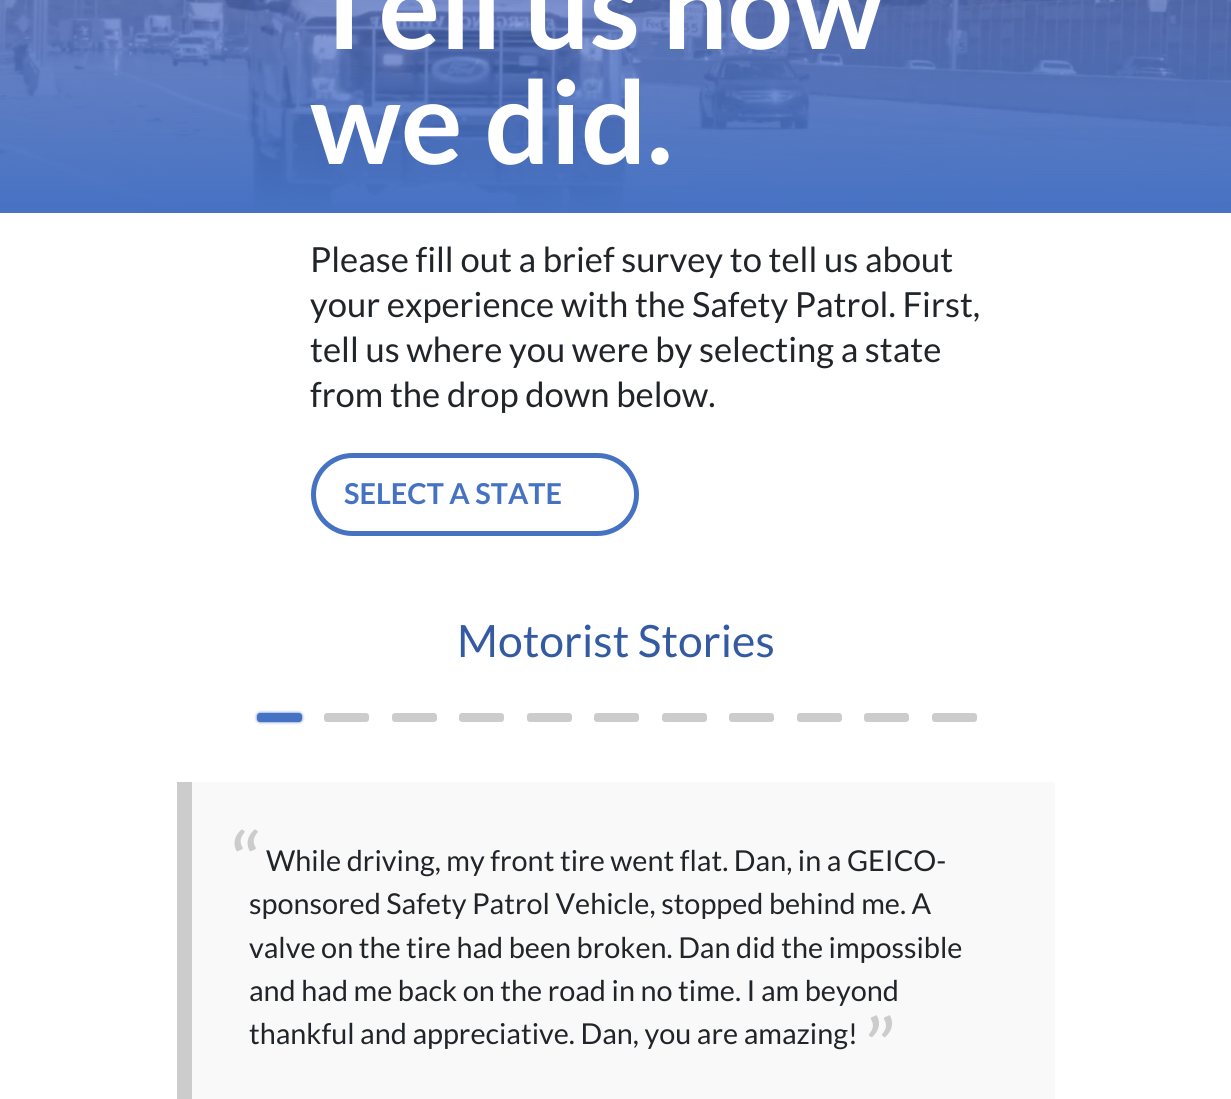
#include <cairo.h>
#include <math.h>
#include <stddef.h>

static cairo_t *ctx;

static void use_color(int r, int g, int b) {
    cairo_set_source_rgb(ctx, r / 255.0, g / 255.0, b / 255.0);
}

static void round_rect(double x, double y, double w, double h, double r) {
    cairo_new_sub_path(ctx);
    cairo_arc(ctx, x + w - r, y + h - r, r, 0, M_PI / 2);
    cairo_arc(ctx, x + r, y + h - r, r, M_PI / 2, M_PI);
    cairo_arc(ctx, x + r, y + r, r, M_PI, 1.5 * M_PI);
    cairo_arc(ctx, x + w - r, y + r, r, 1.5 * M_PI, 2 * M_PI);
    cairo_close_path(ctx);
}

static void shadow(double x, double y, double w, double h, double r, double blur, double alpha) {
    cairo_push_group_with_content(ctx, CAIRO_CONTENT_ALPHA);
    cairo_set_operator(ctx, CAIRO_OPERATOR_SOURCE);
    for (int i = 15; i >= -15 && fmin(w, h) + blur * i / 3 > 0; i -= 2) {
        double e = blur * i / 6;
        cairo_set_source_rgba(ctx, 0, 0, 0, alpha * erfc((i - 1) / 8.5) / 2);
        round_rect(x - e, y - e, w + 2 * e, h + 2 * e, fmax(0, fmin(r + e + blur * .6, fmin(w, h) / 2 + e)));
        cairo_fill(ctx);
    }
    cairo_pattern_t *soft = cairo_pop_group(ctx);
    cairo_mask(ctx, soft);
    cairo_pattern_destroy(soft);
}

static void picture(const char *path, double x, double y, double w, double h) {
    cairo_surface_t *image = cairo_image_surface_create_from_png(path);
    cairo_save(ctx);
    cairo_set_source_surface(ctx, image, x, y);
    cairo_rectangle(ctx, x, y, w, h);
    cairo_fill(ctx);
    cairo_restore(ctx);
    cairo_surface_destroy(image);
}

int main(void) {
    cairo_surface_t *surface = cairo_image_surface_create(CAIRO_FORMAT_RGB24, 1231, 1099);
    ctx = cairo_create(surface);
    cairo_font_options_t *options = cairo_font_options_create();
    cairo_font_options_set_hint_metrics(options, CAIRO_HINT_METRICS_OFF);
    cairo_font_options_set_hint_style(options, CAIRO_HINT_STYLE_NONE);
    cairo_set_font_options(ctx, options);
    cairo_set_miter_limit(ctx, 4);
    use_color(255, 255, 255);
    cairo_paint(ctx);
    picture("img1.png", 0, 0, 1231, 213);
    cairo_select_font_face(ctx, "Lato", CAIRO_FONT_SLANT_NORMAL, CAIRO_FONT_WEIGHT_BOLD);
    cairo_set_font_size(ctx, 115);
    use_color(255, 255, 255);
    cairo_move_to(ctx, 310, 49);
    cairo_show_text(ctx, "Tell us how");
    cairo_move_to(ctx, 310, 164);
    cairo_show_text(ctx, "we did.");
    cairo_select_font_face(ctx, "Lato", CAIRO_FONT_SLANT_NORMAL, CAIRO_FONT_WEIGHT_NORMAL);
    cairo_set_font_size(ctx, 34.6);
    use_color(33, 37, 41);
    cairo_move_to(ctx, 310, 272);
    cairo_show_text(ctx, "Please fill out a brief survey to tell us about");
    cairo_move_to(ctx, 310, 317);
    cairo_show_text(ctx, "your experience with the Safety Patrol. First,");
    cairo_move_to(ctx, 310, 362);
    cairo_show_text(ctx, "tell us where you were by selecting a state");
    cairo_move_to(ctx, 310, 407);
    cairo_show_text(ctx, "from the drop down below.");
    round_rect(313.5, 455.5, 323, 78, 39);
    use_color(70, 114, 195);
    cairo_set_line_width(ctx, 5);
    cairo_stroke(ctx);
    cairo_select_font_face(ctx, "Lato", CAIRO_FONT_SLANT_NORMAL, CAIRO_FONT_WEIGHT_BOLD);
    cairo_set_font_size(ctx, 28.8);
    cairo_move_to(ctx, 344, 504);
    cairo_show_text(ctx, "SELECT A STATE");
    cairo_select_font_face(ctx, "Lato", CAIRO_FONT_SLANT_NORMAL, CAIRO_FONT_WEIGHT_NORMAL);
    cairo_set_font_size(ctx, 44.5);
    use_color(52, 91, 162);
    cairo_move_to(ctx, 457, 657);
    cairo_show_text(ctx, "Motorist Stories");
    use_color(70, 114, 195);
    shadow(257, 713, 45, 9, 3, 1.5, 1);
    use_color(70, 114, 195);
    round_rect(257, 713, 45, 9, 3);
    cairo_fill(ctx);
    use_color(204, 204, 204);
    round_rect(324, 713, 45, 9, 3);
    cairo_fill(ctx);
    round_rect(392, 713, 45, 9, 3);
    cairo_fill(ctx);
    round_rect(459, 713, 45, 9, 3);
    cairo_fill(ctx);
    round_rect(527, 713, 45, 9, 3);
    cairo_fill(ctx);
    round_rect(594, 713, 45, 9, 3);
    cairo_fill(ctx);
    round_rect(662, 713, 45, 9, 3);
    cairo_fill(ctx);
    round_rect(729, 713, 45, 9, 3);
    cairo_fill(ctx);
    round_rect(797, 713, 45, 9, 3);
    cairo_fill(ctx);
    round_rect(864, 713, 45, 9, 3);
    cairo_fill(ctx);
    round_rect(932, 713, 45, 9, 3);
    cairo_fill(ctx);
    use_color(249, 249, 249);
    cairo_rectangle(ctx, 192, 782, 863, 317);
    cairo_fill(ctx);
    use_color(204, 204, 204);
    cairo_rectangle(ctx, 177, 782, 15, 317);
    cairo_fill(ctx);
    cairo_set_font_size(ctx, 86);
    cairo_move_to(ctx, 232, 895);
    cairo_show_text(ctx, "“");
    cairo_set_font_size(ctx, 28.8);
    use_color(33, 37, 41);
    cairo_move_to(ctx, 266, 871);
    cairo_show_text(ctx, "While driving, my front tire went flat. Dan, in a GEICO-");
    cairo_move_to(ctx, 249, 914);
    cairo_show_text(ctx, "sponsored Safety Patrol Vehicle, stopped behind me. A");
    cairo_move_to(ctx, 249, 958);
    cairo_show_text(ctx, "valve on the tire had been broken. Dan did the impossible");
    cairo_move_to(ctx, 249, 1001);
    cairo_show_text(ctx, "and had me back on the road in no time. I am beyond");
    cairo_move_to(ctx, 249, 1044);
    cairo_show_text(ctx, "thankful and appreciative. Dan, you are amazing!");
    cairo_set_font_size(ctx, 86);
    use_color(204, 204, 204);
    cairo_move_to(ctx, 865, 1080);
    cairo_show_text(ctx, "”");
    cairo_surface_write_to_png(surface, "result.png");
    cairo_font_options_destroy(options);
    cairo_destroy(ctx);
    cairo_surface_destroy(surface);
    return 0;
}
